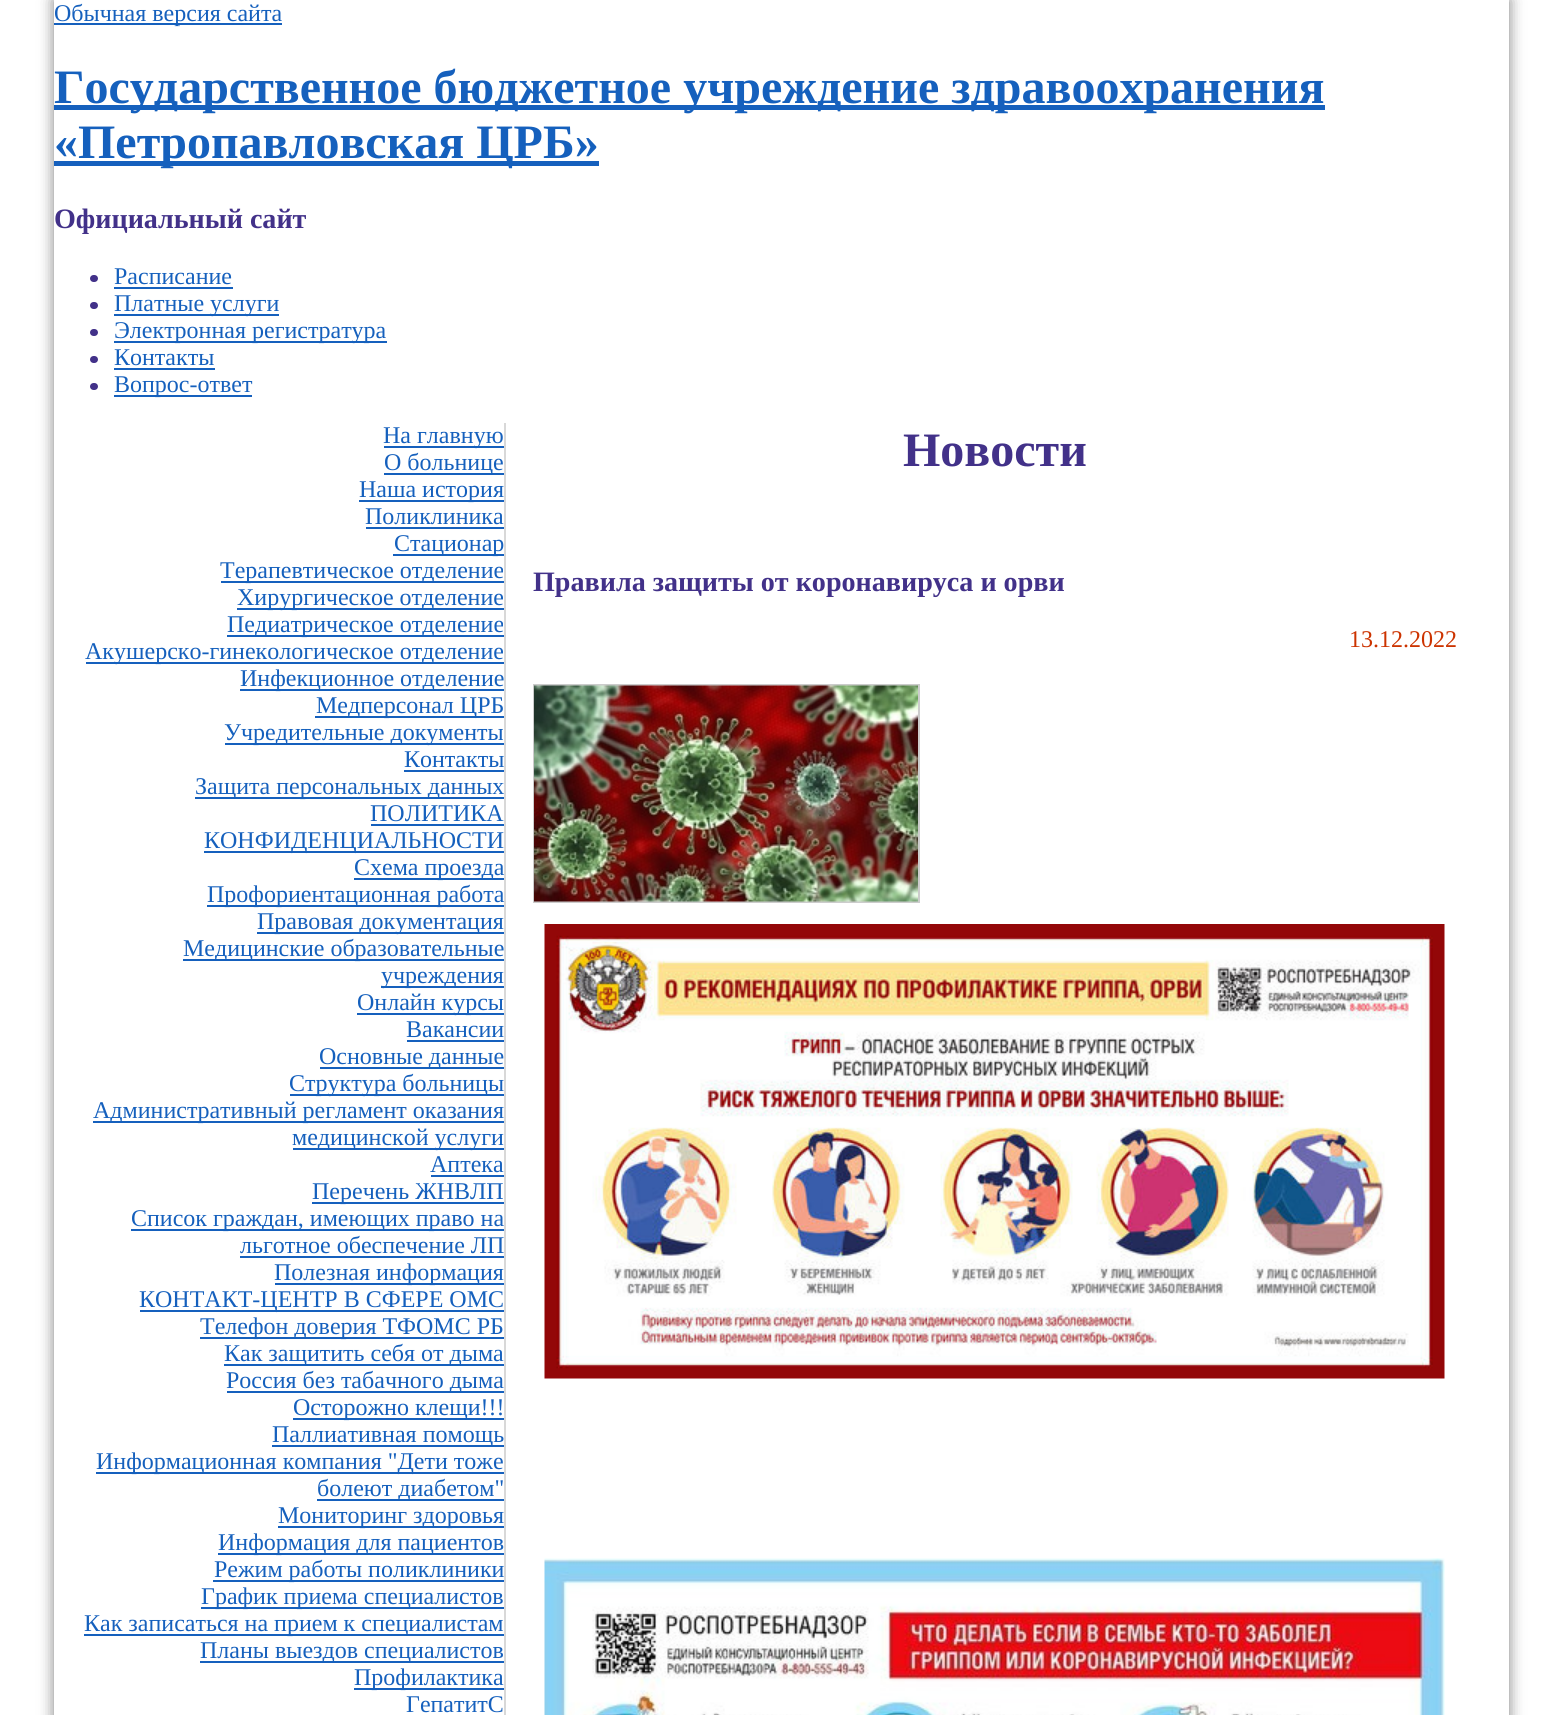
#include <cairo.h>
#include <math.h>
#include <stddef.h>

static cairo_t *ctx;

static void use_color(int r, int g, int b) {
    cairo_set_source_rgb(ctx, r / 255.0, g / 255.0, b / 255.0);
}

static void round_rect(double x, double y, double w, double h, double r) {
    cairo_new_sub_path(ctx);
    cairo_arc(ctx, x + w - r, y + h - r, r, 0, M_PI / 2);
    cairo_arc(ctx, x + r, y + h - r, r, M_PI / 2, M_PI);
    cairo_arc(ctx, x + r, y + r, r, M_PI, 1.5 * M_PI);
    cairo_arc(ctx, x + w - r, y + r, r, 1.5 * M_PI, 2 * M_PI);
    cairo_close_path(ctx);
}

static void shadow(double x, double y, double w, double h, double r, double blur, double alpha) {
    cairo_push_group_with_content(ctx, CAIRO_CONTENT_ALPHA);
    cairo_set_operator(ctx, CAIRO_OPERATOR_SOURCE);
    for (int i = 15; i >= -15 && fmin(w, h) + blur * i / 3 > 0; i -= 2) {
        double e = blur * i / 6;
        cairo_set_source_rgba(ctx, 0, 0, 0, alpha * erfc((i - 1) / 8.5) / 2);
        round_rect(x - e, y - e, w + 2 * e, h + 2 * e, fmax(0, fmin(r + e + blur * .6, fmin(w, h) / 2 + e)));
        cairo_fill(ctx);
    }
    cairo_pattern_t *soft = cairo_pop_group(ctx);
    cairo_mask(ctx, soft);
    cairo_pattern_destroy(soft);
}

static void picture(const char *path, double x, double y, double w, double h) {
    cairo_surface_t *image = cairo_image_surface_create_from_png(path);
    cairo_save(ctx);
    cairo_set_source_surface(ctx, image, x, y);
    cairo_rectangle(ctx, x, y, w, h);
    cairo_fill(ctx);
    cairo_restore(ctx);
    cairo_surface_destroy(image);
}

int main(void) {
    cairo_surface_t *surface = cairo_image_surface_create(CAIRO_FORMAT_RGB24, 1562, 1715);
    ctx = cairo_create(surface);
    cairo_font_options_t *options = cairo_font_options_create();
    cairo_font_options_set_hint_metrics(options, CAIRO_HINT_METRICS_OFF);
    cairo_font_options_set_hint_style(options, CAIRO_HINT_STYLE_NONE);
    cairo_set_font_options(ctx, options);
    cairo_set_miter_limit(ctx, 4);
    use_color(255, 255, 255);
    cairo_paint(ctx);
    cairo_save(ctx);
    cairo_set_fill_rule(ctx, CAIRO_FILL_RULE_EVEN_ODD);
    cairo_new_path(ctx);
    cairo_move_to(ctx, 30, 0);
    cairo_line_to(ctx, 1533, 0);
    cairo_line_to(ctx, 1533, 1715);
    cairo_line_to(ctx, 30, 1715);
    cairo_close_path(ctx);
    cairo_move_to(ctx, 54, 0);
    cairo_line_to(ctx, 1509, 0);
    cairo_line_to(ctx, 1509, 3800);
    cairo_line_to(ctx, 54, 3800);
    cairo_close_path(ctx);
    cairo_clip(ctx);
    use_color(0, 0, 0);
    shadow(54, 0, 1455, 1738, 0, 7.5, 0.5);
    cairo_restore(ctx);
    use_color(21, 96, 189);
    cairo_rectangle(ctx, 54, 23, 228, 2);
    cairo_fill(ctx);
    cairo_select_font_face(ctx, "Liberation Serif", CAIRO_FONT_SLANT_NORMAL, CAIRO_FONT_WEIGHT_NORMAL);
    cairo_set_font_size(ctx, 24);
    cairo_move_to(ctx, 54, 21);
    cairo_show_text(ctx, "Обычная версия сайта");
    cairo_rectangle(ctx, 54, 105, 1271, 5);
    cairo_fill(ctx);
    cairo_select_font_face(ctx, "Liberation Serif", CAIRO_FONT_SLANT_NORMAL, CAIRO_FONT_WEIGHT_BOLD);
    cairo_set_font_size(ctx, 48);
    cairo_move_to(ctx, 54, 103);
    cairo_show_text(ctx, "Государственное бюджетное учреждение здравоохранения");
    cairo_rectangle(ctx, 54, 161, 545, 5);
    cairo_fill(ctx);
    cairo_move_to(ctx, 54, 158);
    cairo_show_text(ctx, "«Петропавловская ЦРБ»");
    cairo_set_font_size(ctx, 28.1);
    use_color(66, 49, 137);
    cairo_move_to(ctx, 54, 228);
    cairo_show_text(ctx, "Официальный сайт");
    round_rect(90, 275, 8, 7, 3.5);
    cairo_fill(ctx);
    cairo_select_font_face(ctx, "Liberation Serif", CAIRO_FONT_SLANT_NORMAL, CAIRO_FONT_WEIGHT_NORMAL);
    cairo_set_font_size(ctx, 24);
    use_color(21, 96, 189);
    cairo_move_to(ctx, 114, 284);
    cairo_show_text(ctx, "Расписание");
    cairo_rectangle(ctx, 114, 287, 119, 2);
    cairo_fill(ctx);
    use_color(66, 49, 137);
    round_rect(90, 302, 8, 7, 3.5);
    cairo_fill(ctx);
    use_color(21, 96, 189);
    cairo_rectangle(ctx, 114, 314, 165, 2);
    cairo_fill(ctx);
    cairo_move_to(ctx, 114, 311);
    cairo_show_text(ctx, "Платные услуги");
    use_color(66, 49, 137);
    round_rect(90, 329, 8, 7, 3.5);
    cairo_fill(ctx);
    use_color(21, 96, 189);
    cairo_rectangle(ctx, 114, 341, 273, 2);
    cairo_fill(ctx);
    cairo_move_to(ctx, 114, 338);
    cairo_show_text(ctx, "Электронная регистратура");
    use_color(66, 49, 137);
    round_rect(90, 356, 8, 7, 3.5);
    cairo_fill(ctx);
    use_color(21, 96, 189);
    cairo_move_to(ctx, 114, 365);
    cairo_show_text(ctx, "Контакты");
    cairo_rectangle(ctx, 114, 368, 101, 2);
    cairo_fill(ctx);
    use_color(66, 49, 137);
    round_rect(90, 383, 8, 7, 3.5);
    cairo_fill(ctx);
    use_color(21, 96, 189);
    cairo_rectangle(ctx, 114, 395, 138, 2);
    cairo_fill(ctx);
    cairo_move_to(ctx, 114, 392);
    cairo_show_text(ctx, "Вопрос-ответ");
    use_color(216, 216, 216);
    cairo_rectangle(ctx, 504, 423, 2, 1292);
    cairo_fill(ctx);
    use_color(21, 96, 189);
    cairo_rectangle(ctx, 384, 446, 120, 2);
    cairo_fill(ctx);
    cairo_move_to(ctx, 383, 443);
    cairo_show_text(ctx, "На главную");
    cairo_rectangle(ctx, 384, 473, 120, 2);
    cairo_fill(ctx);
    cairo_move_to(ctx, 384, 470);
    cairo_show_text(ctx, "О больнице");
    cairo_rectangle(ctx, 359, 500, 145, 2);
    cairo_fill(ctx);
    cairo_move_to(ctx, 359, 497);
    cairo_show_text(ctx, "Наша история");
    cairo_move_to(ctx, 365, 524);
    cairo_show_text(ctx, "Поликлиника");
    cairo_rectangle(ctx, 366, 527, 138, 2);
    cairo_fill(ctx);
    cairo_rectangle(ctx, 393, 554, 111, 2);
    cairo_fill(ctx);
    cairo_move_to(ctx, 394, 551);
    cairo_show_text(ctx, "Стационар");
    cairo_rectangle(ctx, 221, 581, 283, 2);
    cairo_fill(ctx);
    cairo_move_to(ctx, 220, 578);
    cairo_show_text(ctx, "Терапевтическое отделение");
    cairo_rectangle(ctx, 237, 608, 267, 2);
    cairo_fill(ctx);
    cairo_move_to(ctx, 237, 605);
    cairo_show_text(ctx, "Хирургическое отделение");
    cairo_rectangle(ctx, 227, 635, 277, 2);
    cairo_fill(ctx);
    cairo_move_to(ctx, 227, 632);
    cairo_show_text(ctx, "Педиатрическое отделение");
    cairo_rectangle(ctx, 86, 662, 418, 2);
    cairo_fill(ctx);
    cairo_move_to(ctx, 85, 659);
    cairo_show_text(ctx, "Акушерско-гинекологическое отделение");
    cairo_rectangle(ctx, 240, 689, 264, 2);
    cairo_fill(ctx);
    cairo_move_to(ctx, 240, 686);
    cairo_show_text(ctx, "Инфекционное отделение");
    cairo_rectangle(ctx, 315, 716, 189, 2);
    cairo_fill(ctx);
    cairo_move_to(ctx, 316, 713);
    cairo_show_text(ctx, "Медперсонал ЦРБ");
    cairo_rectangle(ctx, 225, 743, 279, 2);
    cairo_fill(ctx);
    cairo_move_to(ctx, 224, 740);
    cairo_show_text(ctx, "Учредительные документы");
    cairo_move_to(ctx, 404, 767);
    cairo_show_text(ctx, "Контакты");
    cairo_rectangle(ctx, 404, 770, 100, 2);
    cairo_fill(ctx);
    cairo_rectangle(ctx, 195, 797, 309, 2);
    cairo_fill(ctx);
    cairo_move_to(ctx, 195, 794);
    cairo_show_text(ctx, "Защита персональных данных");
    cairo_move_to(ctx, 370, 821);
    cairo_show_text(ctx, "ПОЛИТИКА");
    cairo_rectangle(ctx, 371, 824, 133, 2);
    cairo_fill(ctx);
    cairo_rectangle(ctx, 204, 851, 300, 2);
    cairo_fill(ctx);
    cairo_move_to(ctx, 204, 848);
    cairo_show_text(ctx, "КОНФИДЕНЦИАЛЬНОСТИ");
    cairo_rectangle(ctx, 354, 878, 150, 2);
    cairo_fill(ctx);
    cairo_move_to(ctx, 354, 875);
    cairo_show_text(ctx, "Схема проезда");
    cairo_rectangle(ctx, 207, 905, 297, 2);
    cairo_fill(ctx);
    cairo_move_to(ctx, 207, 902);
    cairo_show_text(ctx, "Профориентационная работа");
    cairo_rectangle(ctx, 257, 932, 247, 2);
    cairo_fill(ctx);
    cairo_move_to(ctx, 257, 929);
    cairo_show_text(ctx, "Правовая документация");
    cairo_rectangle(ctx, 183, 959, 321, 2);
    cairo_fill(ctx);
    cairo_move_to(ctx, 183, 956);
    cairo_show_text(ctx, "Медицинские образовательные");
    cairo_rectangle(ctx, 381, 986, 123, 2);
    cairo_fill(ctx);
    cairo_move_to(ctx, 381, 983);
    cairo_show_text(ctx, "учреждения");
    cairo_rectangle(ctx, 357, 1013, 147, 2);
    cairo_fill(ctx);
    cairo_move_to(ctx, 357, 1010);
    cairo_show_text(ctx, "Онлайн курсы");
    cairo_move_to(ctx, 406, 1037);
    cairo_show_text(ctx, "Вакансии");
    cairo_rectangle(ctx, 407, 1040, 97, 2);
    cairo_fill(ctx);
    cairo_rectangle(ctx, 320, 1067, 184, 2);
    cairo_fill(ctx);
    cairo_move_to(ctx, 319, 1064);
    cairo_show_text(ctx, "Основные данные");
    cairo_rectangle(ctx, 290, 1094, 214, 2);
    cairo_fill(ctx);
    cairo_move_to(ctx, 289, 1091);
    cairo_show_text(ctx, "Структура больницы");
    cairo_rectangle(ctx, 93, 1121, 411, 2);
    cairo_fill(ctx);
    cairo_move_to(ctx, 93, 1118);
    cairo_show_text(ctx, "Административный регламент оказания");
    cairo_rectangle(ctx, 293, 1148, 211, 2);
    cairo_fill(ctx);
    cairo_move_to(ctx, 292, 1145);
    cairo_show_text(ctx, "медицинской услуги");
    cairo_move_to(ctx, 430, 1172);
    cairo_show_text(ctx, "Аптека");
    cairo_rectangle(ctx, 431, 1175, 73, 2);
    cairo_fill(ctx);
    cairo_rectangle(ctx, 312, 1202, 192, 2);
    cairo_fill(ctx);
    cairo_move_to(ctx, 312, 1199);
    cairo_show_text(ctx, "Перечень ЖНВЛП");
    cairo_rectangle(ctx, 131, 1229, 373, 2);
    cairo_fill(ctx);
    cairo_move_to(ctx, 131, 1226);
    cairo_show_text(ctx, "Список граждан, имеющих право на");
    cairo_move_to(ctx, 240, 1253);
    cairo_show_text(ctx, "льготное обеспечение ЛП");
    cairo_rectangle(ctx, 240, 1256, 264, 2);
    cairo_fill(ctx);
    cairo_rectangle(ctx, 275, 1283, 229, 2);
    cairo_fill(ctx);
    cairo_move_to(ctx, 274, 1280);
    cairo_show_text(ctx, "Полезная информация");
    cairo_rectangle(ctx, 140, 1310, 364, 2);
    cairo_fill(ctx);
    cairo_move_to(ctx, 139, 1307);
    cairo_show_text(ctx, "КОНТАКТ-ЦЕНТР В СФЕРЕ ОМС");
    cairo_rectangle(ctx, 200, 1337, 304, 2);
    cairo_fill(ctx);
    cairo_move_to(ctx, 200, 1334);
    cairo_show_text(ctx, "Телефон доверия ТФОМС РБ");
    cairo_rectangle(ctx, 224, 1364, 280, 2);
    cairo_fill(ctx);
    cairo_move_to(ctx, 224, 1361);
    cairo_show_text(ctx, "Как защитить себя от дыма");
    cairo_rectangle(ctx, 227, 1391, 277, 2);
    cairo_fill(ctx);
    cairo_move_to(ctx, 226, 1388);
    cairo_show_text(ctx, "Россия без табачного дыма");
    cairo_rectangle(ctx, 293, 1418, 211, 2);
    cairo_fill(ctx);
    cairo_move_to(ctx, 293, 1415);
    cairo_show_text(ctx, "Осторожно клещи!!!");
    cairo_rectangle(ctx, 272, 1445, 232, 2);
    cairo_fill(ctx);
    cairo_move_to(ctx, 272, 1442);
    cairo_show_text(ctx, "Паллиативная помощь");
    cairo_rectangle(ctx, 96, 1472, 408, 2);
    cairo_fill(ctx);
    cairo_move_to(ctx, 96, 1469);
    cairo_show_text(ctx, "Информационная компания \"Дети тоже");
    cairo_rectangle(ctx, 317, 1499, 187, 2);
    cairo_fill(ctx);
    cairo_move_to(ctx, 317, 1496);
    cairo_show_text(ctx, "болеют диабетом\"");
    cairo_rectangle(ctx, 278, 1526, 226, 2);
    cairo_fill(ctx);
    cairo_move_to(ctx, 278, 1523);
    cairo_show_text(ctx, "Мониторинг здоровья");
    cairo_rectangle(ctx, 218, 1553, 286, 2);
    cairo_fill(ctx);
    cairo_move_to(ctx, 218, 1550);
    cairo_show_text(ctx, "Информация для пациентов");
    cairo_rectangle(ctx, 213, 1580, 291, 2);
    cairo_fill(ctx);
    cairo_move_to(ctx, 214, 1577);
    cairo_show_text(ctx, "Режим работы поликлиники");
    cairo_rectangle(ctx, 201, 1607, 303, 2);
    cairo_fill(ctx);
    cairo_move_to(ctx, 201, 1604);
    cairo_show_text(ctx, "График приема специалистов");
    cairo_rectangle(ctx, 84, 1634, 420, 2);
    cairo_fill(ctx);
    cairo_move_to(ctx, 84, 1631);
    cairo_show_text(ctx, "Как записаться на прием к специалистам");
    cairo_rectangle(ctx, 200, 1661, 304, 2);
    cairo_fill(ctx);
    cairo_move_to(ctx, 200, 1658);
    cairo_show_text(ctx, "Планы выездов специалистов");
    cairo_rectangle(ctx, 354, 1688, 150, 2);
    cairo_fill(ctx);
    cairo_move_to(ctx, 354, 1685);
    cairo_show_text(ctx, "Профилактика");
    cairo_move_to(ctx, 406, 1712);
    cairo_show_text(ctx, "ГепатитС");
    cairo_select_font_face(ctx, "Liberation Serif", CAIRO_FONT_SLANT_NORMAL, CAIRO_FONT_WEIGHT_BOLD);
    cairo_set_font_size(ctx, 48);
    use_color(66, 49, 137);
    cairo_move_to(ctx, 903, 466);
    cairo_show_text(ctx, "Новости");
    cairo_set_font_size(ctx, 28.1);
    cairo_move_to(ctx, 533, 591);
    cairo_show_text(ctx, "Правила защиты от коронавируса и орви");
    cairo_select_font_face(ctx, "Liberation Serif", CAIRO_FONT_SLANT_NORMAL, CAIRO_FONT_WEIGHT_NORMAL);
    cairo_set_font_size(ctx, 24);
    use_color(204, 51, 0);
    cairo_move_to(ctx, 1349, 647);
    cairo_show_text(ctx, "13.12.2022");
    cairo_rectangle(ctx, 534, 685, 385, 217);
    use_color(204, 204, 204);
    cairo_stroke(ctx);
    picture("img1.png", 534, 685, 384, 217);
    picture("img2.png", 544, 924, 901, 455);
    picture("img3.png", 544, 1558, 901, 157);
    cairo_surface_write_to_png(surface, "result.png");
    cairo_font_options_destroy(options);
    cairo_destroy(ctx);
    cairo_surface_destroy(surface);
    return 0;
}
